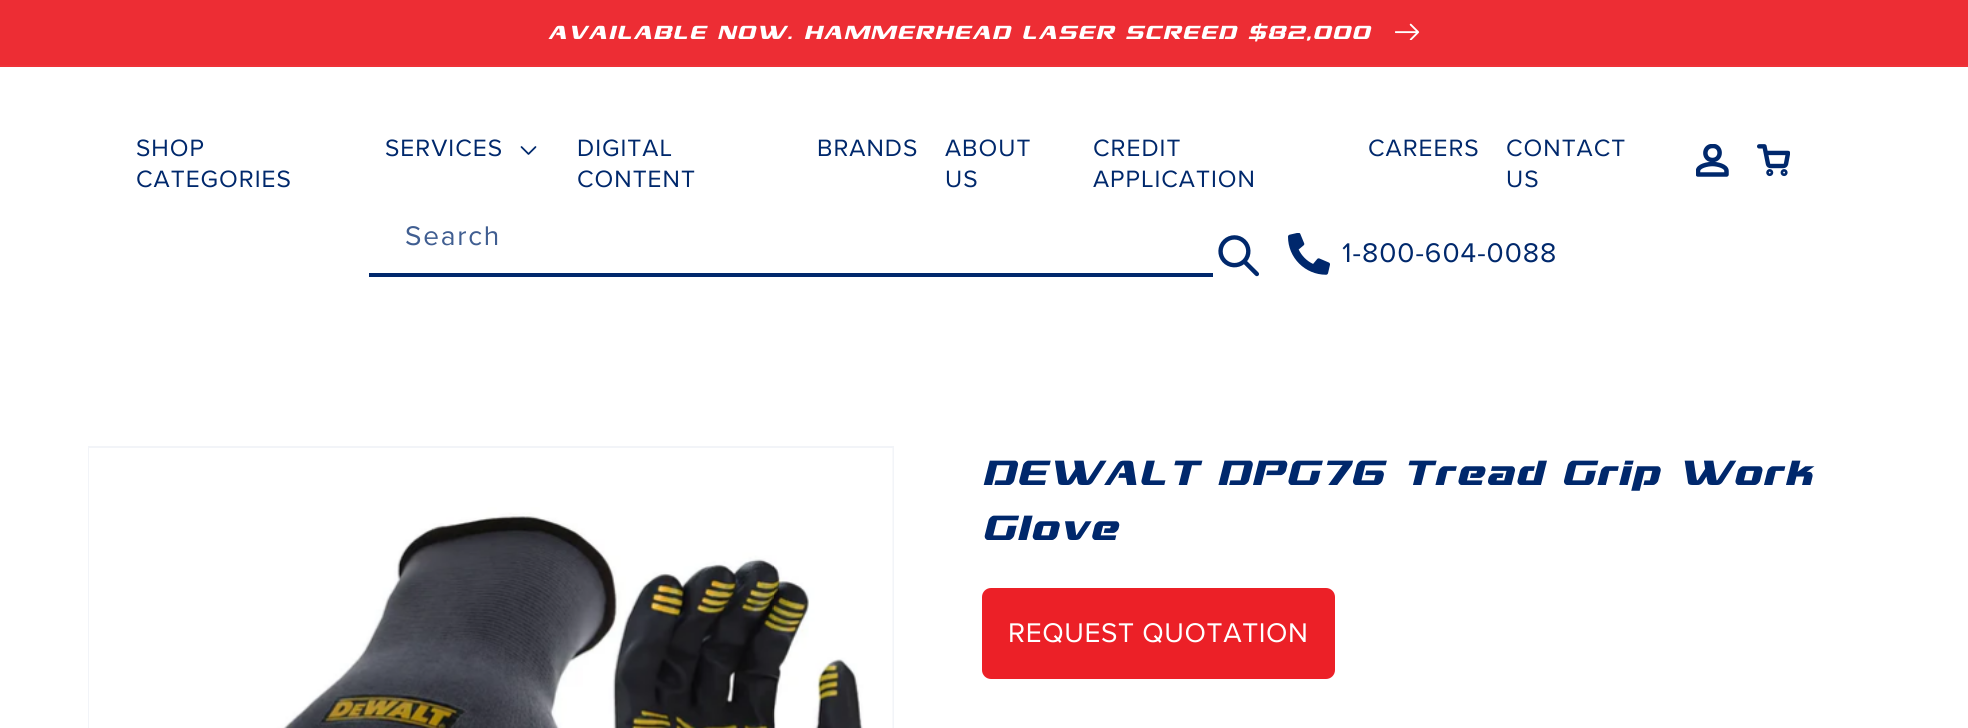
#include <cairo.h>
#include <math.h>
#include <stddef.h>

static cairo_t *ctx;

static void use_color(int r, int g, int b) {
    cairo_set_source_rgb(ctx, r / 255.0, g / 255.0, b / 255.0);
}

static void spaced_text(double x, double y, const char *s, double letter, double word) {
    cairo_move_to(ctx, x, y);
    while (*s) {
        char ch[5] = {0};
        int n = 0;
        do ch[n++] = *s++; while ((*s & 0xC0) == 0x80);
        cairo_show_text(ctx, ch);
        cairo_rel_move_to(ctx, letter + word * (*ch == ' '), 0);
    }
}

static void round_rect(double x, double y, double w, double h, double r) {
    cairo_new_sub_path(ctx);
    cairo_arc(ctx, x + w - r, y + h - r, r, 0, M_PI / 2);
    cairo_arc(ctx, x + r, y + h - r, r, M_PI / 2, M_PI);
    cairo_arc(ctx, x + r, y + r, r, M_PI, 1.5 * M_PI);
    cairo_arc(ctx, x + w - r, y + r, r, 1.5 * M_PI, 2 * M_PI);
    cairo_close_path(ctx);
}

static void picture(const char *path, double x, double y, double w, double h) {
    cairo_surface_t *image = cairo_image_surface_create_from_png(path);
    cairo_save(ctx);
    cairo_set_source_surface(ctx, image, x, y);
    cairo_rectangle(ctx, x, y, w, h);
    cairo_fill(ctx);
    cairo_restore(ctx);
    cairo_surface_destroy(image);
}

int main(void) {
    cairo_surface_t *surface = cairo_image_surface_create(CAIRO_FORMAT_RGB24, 1968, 728);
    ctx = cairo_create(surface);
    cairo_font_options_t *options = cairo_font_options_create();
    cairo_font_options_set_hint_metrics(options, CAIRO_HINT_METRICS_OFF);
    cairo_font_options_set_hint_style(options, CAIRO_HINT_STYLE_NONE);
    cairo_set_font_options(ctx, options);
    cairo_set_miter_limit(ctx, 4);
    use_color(255, 255, 255);
    cairo_paint(ctx);
    use_color(238, 50, 56);
    cairo_rectangle(ctx, 0, 65, 1968, 2);
    cairo_fill(ctx);
    use_color(237, 45, 52);
    cairo_rectangle(ctx, 0, 0, 1968, 65);
    cairo_fill(ctx);
    cairo_select_font_face(ctx, "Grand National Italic", CAIRO_FONT_SLANT_NORMAL, CAIRO_FONT_WEIGHT_NORMAL);
    cairo_set_font_size(ctx, 22.75);
    use_color(255, 255, 255);
    spaced_text(548, 39, "AVAILABLE NOW. HAMMERHEAD LASER SCREED $82,000", 1.75, 0);
    picture("img1.png", 1395, 23, 25, 17);
    cairo_select_font_face(ctx, "Proxima Nova", CAIRO_FONT_SLANT_NORMAL, CAIRO_FONT_WEIGHT_NORMAL);
    cairo_set_font_size(ctx, 24.5);
    use_color(0, 40, 108);
    spaced_text(136, 156, "SHOP", 1, 0);
    spaced_text(136, 187, "CATEGORIES", 1, 0);
    spaced_text(385, 156, "SERVICES", 1, 0);
    picture("img2.png", 520, 146, 17, 9);
    spaced_text(577, 156, "DIGITAL", 1, 0);
    spaced_text(577, 187, "CONTENT", 1, 0);
    spaced_text(817, 156, "BRANDS", 1, 0);
    spaced_text(945, 156, "ABOUT", 1, 0);
    spaced_text(945, 187, "US", 1, 0);
    spaced_text(1093, 156, "CREDIT", 1, 0);
    spaced_text(1093, 187, "APPLICATION", 1, 0);
    spaced_text(1368, 156, "CAREERS", 1, 0);
    spaced_text(1506, 156, "CONTACT", 1, 0);
    spaced_text(1506, 187, "US", 1, 0);
    cairo_save(ctx);
    cairo_rectangle(ctx, 1696, 144, 33, 33);
    cairo_clip(ctx);
    cairo_new_path(ctx);
    cairo_move_to(ctx, 1712.5, 160);
    cairo_curve_to(ctx, 1722, 160, 1722, 145.5, 1712.5, 146);
    cairo_curve_to(ctx, 1703, 146, 1703, 160, 1712.5, 160);
    cairo_close_path(ctx);
    cairo_move_to(ctx, 1712.5, 164);
    cairo_curve_to(ctx, 1707.5, 164, 1698, 166, 1698, 171);
    cairo_line_to(ctx, 1698, 174.5);
    cairo_line_to(ctx, 1726.5, 174.5);
    cairo_line_to(ctx, 1726.5, 171);
    cairo_curve_to(ctx, 1726.5, 166, 1717, 164, 1712.5, 164);
    cairo_close_path(ctx);
    cairo_set_line_width(ctx, 4.5);
    cairo_set_line_cap(ctx, CAIRO_LINE_CAP_ROUND);
    cairo_set_line_join(ctx, CAIRO_LINE_JOIN_ROUND);
    cairo_stroke(ctx);
    cairo_restore(ctx);
    picture("img3.png", 1757, 144, 33, 33);
    cairo_set_font_size(ctx, 28);
    use_color(64, 94, 145);
    spaced_text(405, 245, "Search", 1.75, 0);
    use_color(0, 40, 108);
    cairo_rectangle(ctx, 369, 273, 844, 4);
    cairo_fill(ctx);
    picture("img4.png", 1218, 235, 41, 42);
    picture("img5.png", 1288, 233, 42, 42);
    spaced_text(1342, 262, "1-800-604-0088", 1, 0);
    cairo_rectangle(ctx, 89, 447, 804, 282);
    use_color(242, 244, 248);
    cairo_stroke(ctx);
    picture("img6.png", 89, 448, 804, 280);
    cairo_select_font_face(ctx, "Grand National Italic", CAIRO_FONT_SLANT_NORMAL, CAIRO_FONT_WEIGHT_NORMAL);
    cairo_set_font_size(ctx, 42);
    use_color(0, 40, 108);
    spaced_text(982, 485, "DEWALT DPG76 Tread Grip Work", 1.7, 0);
    spaced_text(982, 540, "Glove", 1.7, 0);
    use_color(236, 32, 39);
    round_rect(982, 588, 353, 91, 9);
    cairo_fill(ctx);
    cairo_select_font_face(ctx, "Proxima Nova", CAIRO_FONT_SLANT_NORMAL, CAIRO_FONT_WEIGHT_NORMAL);
    cairo_set_font_size(ctx, 28);
    use_color(255, 255, 255);
    spaced_text(1008, 642, "REQUEST QUOTATION", 0.6, 0);
    cairo_surface_write_to_png(surface, "result.png");
    cairo_font_options_destroy(options);
    cairo_destroy(ctx);
    cairo_surface_destroy(surface);
    return 0;
}
